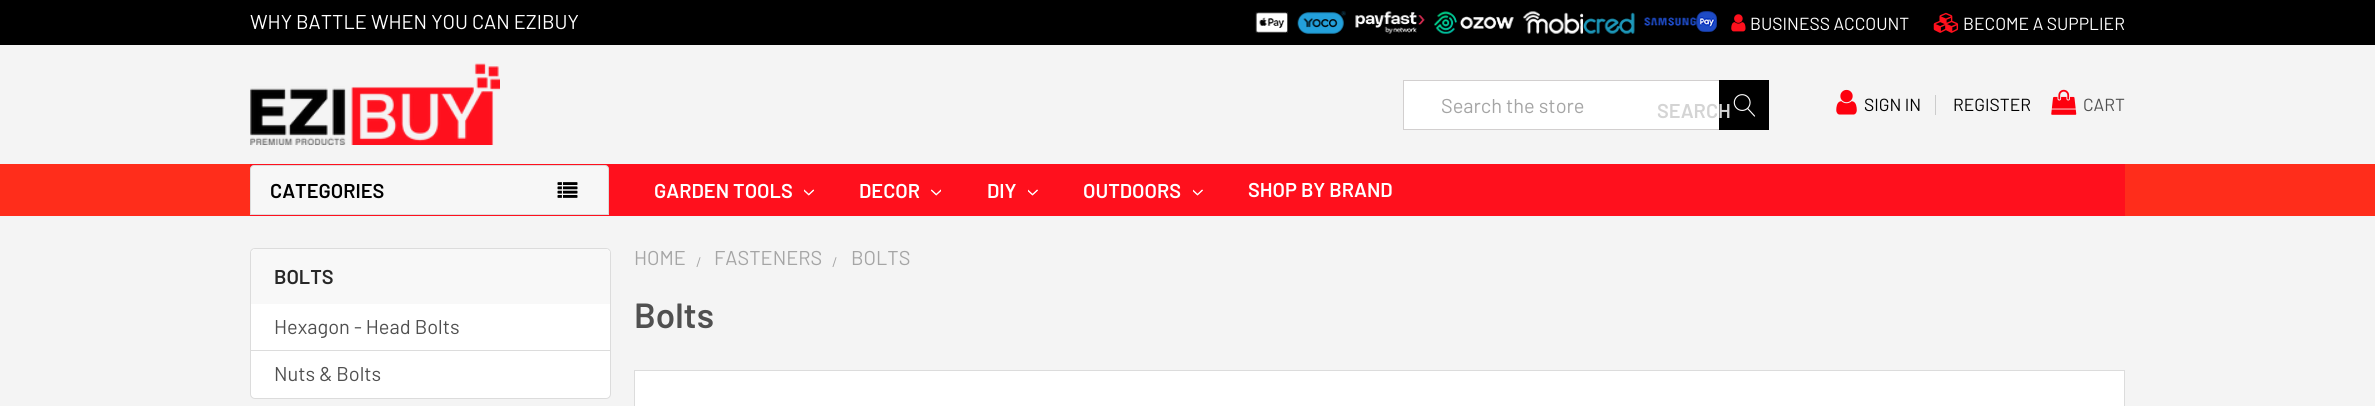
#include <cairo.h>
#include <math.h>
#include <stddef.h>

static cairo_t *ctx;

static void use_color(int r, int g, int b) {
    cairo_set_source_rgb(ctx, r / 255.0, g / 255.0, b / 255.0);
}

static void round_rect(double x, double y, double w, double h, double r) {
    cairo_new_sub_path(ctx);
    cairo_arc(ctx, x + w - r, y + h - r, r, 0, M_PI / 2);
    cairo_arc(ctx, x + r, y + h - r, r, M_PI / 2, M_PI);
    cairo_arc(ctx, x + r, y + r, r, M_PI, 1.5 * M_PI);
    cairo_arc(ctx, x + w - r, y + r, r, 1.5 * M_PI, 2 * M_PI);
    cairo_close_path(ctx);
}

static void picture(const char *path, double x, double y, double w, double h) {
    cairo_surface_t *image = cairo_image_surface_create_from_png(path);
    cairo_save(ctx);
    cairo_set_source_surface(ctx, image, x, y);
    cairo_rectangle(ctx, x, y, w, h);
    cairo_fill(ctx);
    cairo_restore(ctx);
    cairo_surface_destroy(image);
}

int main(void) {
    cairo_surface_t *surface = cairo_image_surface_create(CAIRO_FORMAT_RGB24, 2375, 406);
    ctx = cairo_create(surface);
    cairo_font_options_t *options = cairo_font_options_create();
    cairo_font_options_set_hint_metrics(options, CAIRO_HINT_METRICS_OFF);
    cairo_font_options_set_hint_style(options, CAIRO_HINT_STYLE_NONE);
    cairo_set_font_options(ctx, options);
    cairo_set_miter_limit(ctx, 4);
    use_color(244, 244, 244);
    cairo_paint(ctx);
    use_color(0, 0, 0);
    cairo_rectangle(ctx, 0, 0, 2375, 45);
    cairo_fill(ctx);
    cairo_select_font_face(ctx, "Barlow", CAIRO_FONT_SLANT_NORMAL, CAIRO_FONT_WEIGHT_NORMAL);
    cairo_set_font_size(ctx, 20);
    use_color(255, 255, 255);
    cairo_move_to(ctx, 250, 29);
    cairo_show_text(ctx, "WHY BATTLE WHEN YOU CAN EZIBUY");
    picture("img1.png", 1255, 11, 462, 23);
    picture("img2.png", 1731, 14, 15, 18);
    cairo_set_font_size(ctx, 17.5);
    cairo_move_to(ctx, 1750, 30);
    cairo_show_text(ctx, "BUSINESS ACCOUNT");
    picture("img3.png", 1933, 12, 26, 21);
    cairo_move_to(ctx, 1963, 30);
    cairo_show_text(ctx, "BECOME A SUPPLIER");
    picture("img4.png", 250, 63, 250, 82);
    cairo_rectangle(ctx, 1404, 81, 315, 48);
    cairo_fill(ctx);
    cairo_rectangle(ctx, 1403.5, 80.5, 365, 49);
    use_color(210, 207, 207);
    cairo_set_line_width(ctx, 1);
    cairo_stroke(ctx);
    cairo_set_font_size(ctx, 20);
    use_color(165, 165, 165);
    cairo_move_to(ctx, 1441, 113);
    cairo_show_text(ctx, "Search the store");
    use_color(0, 0, 0);
    cairo_rectangle(ctx, 1719, 80, 50, 50);
    cairo_fill(ctx);
    cairo_select_font_face(ctx, "Barlow SemiBold", CAIRO_FONT_SLANT_NORMAL, CAIRO_FONT_WEIGHT_NORMAL);
    use_color(212, 212, 212);
    cairo_move_to(ctx, 1657, 118);
    cairo_show_text(ctx, "SEARCH");
    picture("img5.png", 1733, 94, 23, 23);
    picture("img6.png", 1836, 89, 21, 26);
    cairo_select_font_face(ctx, "Barlow", CAIRO_FONT_SLANT_NORMAL, CAIRO_FONT_WEIGHT_NORMAL);
    cairo_set_font_size(ctx, 17.5);
    use_color(0, 0, 0);
    cairo_move_to(ctx, 1864, 111);
    cairo_show_text(ctx, "SIGN IN");
    use_color(204, 204, 204);
    cairo_rectangle(ctx, 1935, 95, 1, 20);
    cairo_fill(ctx);
    use_color(0, 0, 0);
    cairo_move_to(ctx, 1953, 111);
    cairo_show_text(ctx, "REGISTER");
    picture("img7.png", 2051, 89, 26, 26);
    use_color(80, 80, 80);
    cairo_move_to(ctx, 2083, 111);
    cairo_show_text(ctx, "CART");
    use_color(255, 45, 27);
    cairo_rectangle(ctx, 0, 164, 2375, 52);
    cairo_fill(ctx);
    use_color(255, 16, 29);
    cairo_rectangle(ctx, 250, 164, 1875, 52);
    cairo_fill(ctx);
    use_color(247, 247, 247);
    cairo_new_path(ctx);
    cairo_move_to(ctx, 254, 165.5);
    cairo_line_to(ctx, 605, 165.5);
    cairo_curve_to(ctx, 607, 165.5, 608.5, 167, 608.5, 169);
    cairo_line_to(ctx, 608.5, 214.5);
    cairo_line_to(ctx, 250.5, 214.5);
    cairo_line_to(ctx, 250.5, 169);
    cairo_curve_to(ctx, 250.5, 167, 252, 165.5, 254, 165.5);
    cairo_close_path(ctx);
    cairo_fill_preserve(ctx);
    use_color(220, 220, 220);
    cairo_stroke(ctx);
    cairo_select_font_face(ctx, "Barlow SemiBold", CAIRO_FONT_SLANT_NORMAL, CAIRO_FONT_WEIGHT_NORMAL);
    cairo_set_font_size(ctx, 20);
    use_color(0, 0, 0);
    cairo_move_to(ctx, 270, 198);
    cairo_show_text(ctx, "CATEGORIES");
    picture("img8.png", 557, 182, 21, 16);
    use_color(255, 255, 255);
    cairo_move_to(ctx, 654, 198);
    cairo_show_text(ctx, "GARDEN TOOLS");
    picture("img9.png", 804, 189, 10, 7);
    cairo_move_to(ctx, 859, 198);
    cairo_show_text(ctx, "DECOR");
    picture("img10.png", 931, 189, 10, 7);
    cairo_move_to(ctx, 987, 198);
    cairo_show_text(ctx, "DIY");
    picture("img11.png", 1028, 189, 10, 7);
    cairo_move_to(ctx, 1083, 198);
    cairo_show_text(ctx, "OUTDOORS");
    picture("img11.png", 1193, 189, 10, 7);
    cairo_move_to(ctx, 1248, 197);
    cairo_show_text(ctx, "SHOP BY BRAND");
    round_rect(250.5, 248.5, 360, 150, 4.5);
    cairo_fill_preserve(ctx);
    use_color(220, 220, 220);
    cairo_stroke(ctx);
    use_color(248, 248, 248);
    cairo_new_path(ctx);
    cairo_move_to(ctx, 255, 249);
    cairo_line_to(ctx, 606, 249);
    cairo_curve_to(ctx, 608, 249, 610, 251, 610, 253);
    cairo_line_to(ctx, 610, 304);
    cairo_line_to(ctx, 251, 304);
    cairo_line_to(ctx, 251, 253);
    cairo_curve_to(ctx, 251, 251, 253, 249, 255, 249);
    cairo_close_path(ctx);
    cairo_fill(ctx);
    use_color(40, 40, 40);
    cairo_move_to(ctx, 274, 284);
    cairo_show_text(ctx, "BOLTS");
    cairo_select_font_face(ctx, "Barlow", CAIRO_FONT_SLANT_NORMAL, CAIRO_FONT_WEIGHT_NORMAL);
    use_color(80, 80, 80);
    cairo_move_to(ctx, 274, 334);
    cairo_show_text(ctx, "Hexagon - Head Bolts");
    use_color(220, 220, 220);
    cairo_rectangle(ctx, 251, 350, 359, 1);
    cairo_fill(ctx);
    use_color(80, 80, 80);
    cairo_move_to(ctx, 274, 381);
    cairo_show_text(ctx, "Nuts & Bolts");
    use_color(165, 165, 165);
    cairo_move_to(ctx, 634, 265);
    cairo_show_text(ctx, "HOME");
    cairo_set_font_size(ctx, 14);
    cairo_move_to(ctx, 696, 267);
    cairo_show_text(ctx, "/");
    cairo_set_font_size(ctx, 20);
    cairo_move_to(ctx, 714, 265);
    cairo_show_text(ctx, "FASTENERS");
    cairo_set_font_size(ctx, 14);
    cairo_move_to(ctx, 832, 267);
    cairo_show_text(ctx, "/");
    cairo_set_font_size(ctx, 20);
    cairo_move_to(ctx, 851, 265);
    cairo_show_text(ctx, "BOLTS");
    cairo_select_font_face(ctx, "Barlow SemiBold", CAIRO_FONT_SLANT_NORMAL, CAIRO_FONT_WEIGHT_NORMAL);
    cairo_set_font_size(ctx, 35);
    use_color(80, 80, 80);
    cairo_move_to(ctx, 634, 328);
    cairo_show_text(ctx, "Bolts");
    use_color(255, 255, 255);
    cairo_rectangle(ctx, 634.5, 370.5, 1490, 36);
    cairo_fill_preserve(ctx);
    use_color(220, 220, 220);
    cairo_stroke(ctx);
    cairo_surface_write_to_png(surface, "result.png");
    cairo_font_options_destroy(options);
    cairo_destroy(ctx);
    cairo_surface_destroy(surface);
    return 0;
}
